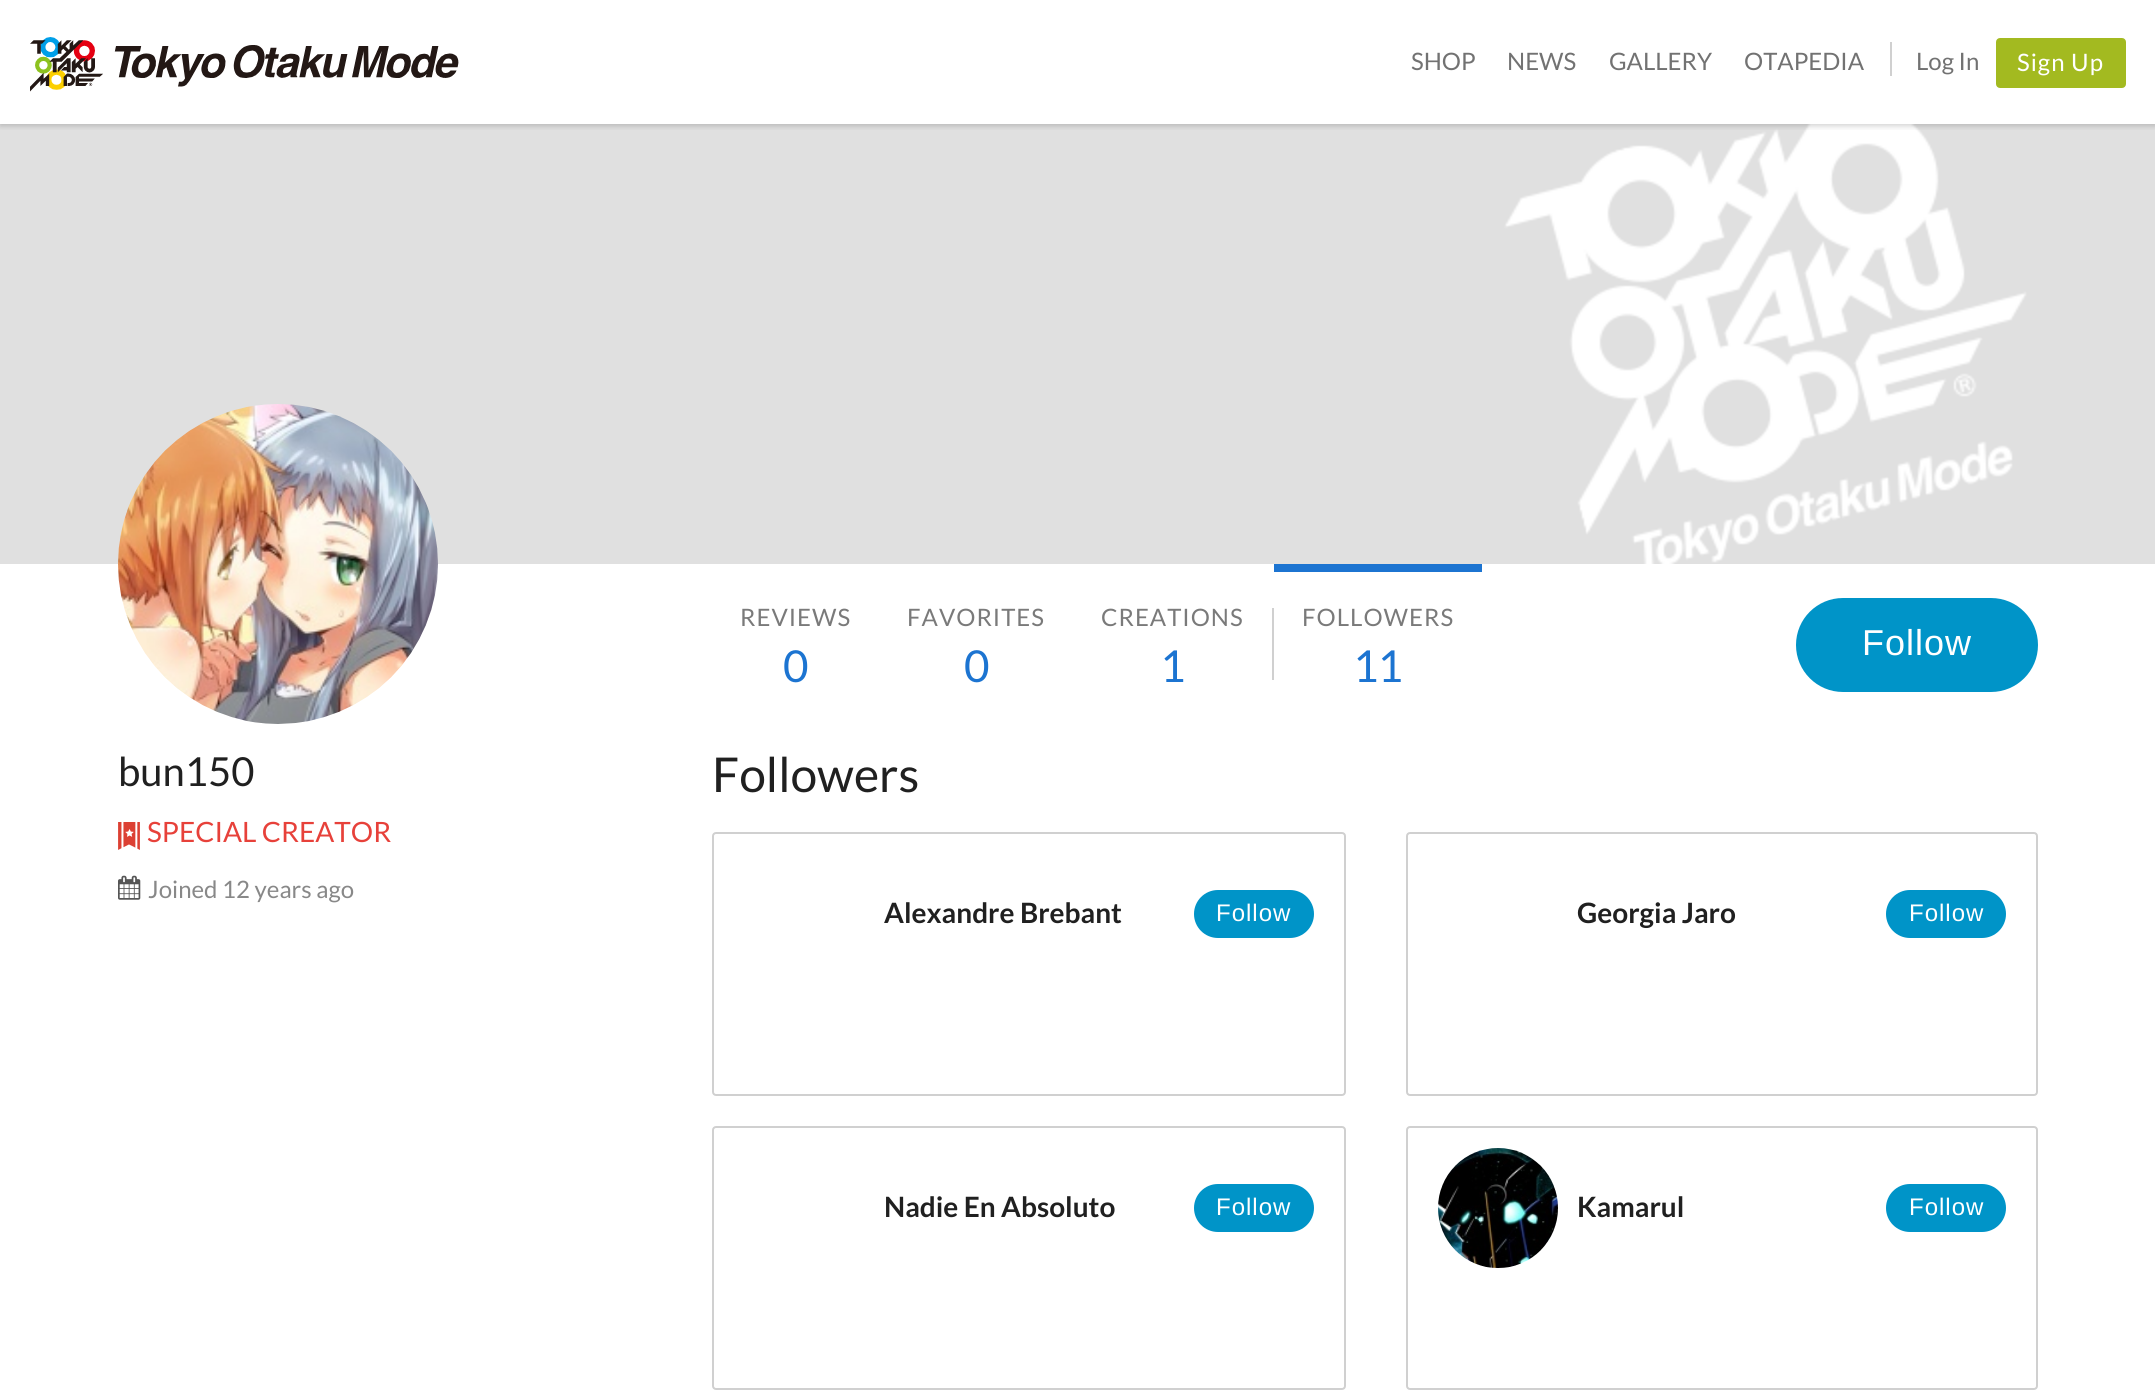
#include <cairo.h>
#include <math.h>
#include <stddef.h>

static cairo_t *ctx;

static void use_color(int r, int g, int b) {
    cairo_set_source_rgb(ctx, r / 255.0, g / 255.0, b / 255.0);
}

static void spaced_text(double x, double y, const char *s, double letter, double word) {
    cairo_move_to(ctx, x, y);
    while (*s) {
        char ch[5] = {0};
        int n = 0;
        do ch[n++] = *s++; while ((*s & 0xC0) == 0x80);
        cairo_show_text(ctx, ch);
        cairo_rel_move_to(ctx, letter + word * (*ch == ' '), 0);
    }
}

static void round_rect(double x, double y, double w, double h, double r) {
    cairo_new_sub_path(ctx);
    cairo_arc(ctx, x + w - r, y + h - r, r, 0, M_PI / 2);
    cairo_arc(ctx, x + r, y + h - r, r, M_PI / 2, M_PI);
    cairo_arc(ctx, x + r, y + r, r, M_PI, 1.5 * M_PI);
    cairo_arc(ctx, x + w - r, y + r, r, 1.5 * M_PI, 2 * M_PI);
    cairo_close_path(ctx);
}

static void shadow(double x, double y, double w, double h, double r, double blur, double alpha) {
    cairo_push_group_with_content(ctx, CAIRO_CONTENT_ALPHA);
    cairo_set_operator(ctx, CAIRO_OPERATOR_SOURCE);
    for (int i = 15; i >= -15 && fmin(w, h) + blur * i / 3 > 0; i -= 2) {
        double e = blur * i / 6;
        cairo_set_source_rgba(ctx, 0, 0, 0, alpha * erfc((i - 1) / 8.5) / 2);
        round_rect(x - e, y - e, w + 2 * e, h + 2 * e, fmax(0, fmin(r + e + blur * .6, fmin(w, h) / 2 + e)));
        cairo_fill(ctx);
    }
    cairo_pattern_t *soft = cairo_pop_group(ctx);
    cairo_mask(ctx, soft);
    cairo_pattern_destroy(soft);
}

static void picture(const char *path, double x, double y, double w, double h) {
    cairo_surface_t *image = cairo_image_surface_create_from_png(path);
    cairo_save(ctx);
    cairo_set_source_surface(ctx, image, x, y);
    cairo_rectangle(ctx, x, y, w, h);
    cairo_fill(ctx);
    cairo_restore(ctx);
    cairo_surface_destroy(image);
}

int main(void) {
    cairo_surface_t *surface = cairo_image_surface_create(CAIRO_FORMAT_RGB24, 2155, 1398);
    ctx = cairo_create(surface);
    cairo_font_options_t *options = cairo_font_options_create();
    cairo_font_options_set_hint_metrics(options, CAIRO_HINT_METRICS_OFF);
    cairo_font_options_set_hint_style(options, CAIRO_HINT_STYLE_NONE);
    cairo_set_font_options(ctx, options);
    cairo_set_miter_limit(ctx, 4);
    use_color(255, 255, 255);
    cairo_paint(ctx);
    picture("img2.png", 0, 124, 2155, 440);
    cairo_save(ctx);
    cairo_rectangle(ctx, 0, 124, 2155, 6);
    cairo_clip(ctx);
    use_color(0, 0, 0);
    shadow(0, 2, 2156, 124, 0, 3, 0.18);
    cairo_restore(ctx);
    picture("img1.png", 30, 37, 429, 55);
    cairo_select_font_face(ctx, "Lato", CAIRO_FONT_SLANT_NORMAL, CAIRO_FONT_WEIGHT_NORMAL);
    cairo_set_font_size(ctx, 24);
    use_color(114, 114, 114);
    cairo_move_to(ctx, 1411, 70);
    cairo_show_text(ctx, "SHOP");
    cairo_move_to(ctx, 1507, 70);
    cairo_show_text(ctx, "NEWS");
    cairo_move_to(ctx, 1609, 70);
    cairo_show_text(ctx, "GALLERY");
    cairo_move_to(ctx, 1744, 70);
    cairo_show_text(ctx, "OTAPEDIA");
    use_color(208, 208, 208);
    cairo_rectangle(ctx, 1890, 42, 2, 34);
    cairo_fill(ctx);
    use_color(114, 114, 114);
    cairo_move_to(ctx, 1916, 70);
    cairo_show_text(ctx, "Log In");
    use_color(163, 186, 32);
    round_rect(1997, 39, 128, 48, 3);
    cairo_fill_preserve(ctx);
    cairo_stroke(ctx);
    use_color(255, 255, 255);
    spaced_text(2017, 71, "Sign Up", 1, 0);
    picture("img3.png", 118, 404, 320, 320);
    use_color(122, 122, 122);
    spaced_text(740, 626, "REVIEWS", 1, 0);
    cairo_set_font_size(ctx, 44);
    use_color(28, 116, 209);
    spaced_text(783, 682, "0", -1, 0);
    cairo_set_font_size(ctx, 24);
    use_color(122, 122, 122);
    spaced_text(907, 626, "FAVORITES", 1, 0);
    cairo_set_font_size(ctx, 44);
    use_color(28, 116, 209);
    spaced_text(964, 682, "0", -1, 0);
    cairo_set_font_size(ctx, 24);
    use_color(122, 122, 122);
    spaced_text(1101, 626, "CREATIONS", 1, 0);
    cairo_set_font_size(ctx, 44);
    use_color(28, 116, 209);
    spaced_text(1160, 682, "1", -1, 0);
    use_color(208, 208, 208);
    cairo_rectangle(ctx, 1272, 608, 2, 72);
    cairo_fill(ctx);
    use_color(28, 116, 209);
    cairo_rectangle(ctx, 1274, 564, 208, 8);
    cairo_fill(ctx);
    cairo_set_font_size(ctx, 24);
    use_color(122, 122, 122);
    spaced_text(1302, 626, "FOLLOWERS", 1, 0);
    cairo_set_font_size(ctx, 44);
    use_color(28, 116, 209);
    spaced_text(1353, 682, "11", -1, 0);
    use_color(0, 148, 200);
    round_rect(1796, 598, 242, 94, 47);
    cairo_fill(ctx);
    cairo_select_font_face(ctx, "Liberation Sans", CAIRO_FONT_SLANT_NORMAL, CAIRO_FONT_WEIGHT_NORMAL);
    cairo_set_font_size(ctx, 36);
    use_color(255, 255, 255);
    spaced_text(1862, 655, "Follow", 1, 0);
    cairo_select_font_face(ctx, "Lato", CAIRO_FONT_SLANT_NORMAL, CAIRO_FONT_WEIGHT_NORMAL);
    cairo_set_font_size(ctx, 40);
    use_color(32, 32, 32);
    cairo_move_to(ctx, 118, 786);
    cairo_show_text(ctx, "bun150");
    picture("img4.png", 118, 822, 22, 28);
    cairo_set_font_size(ctx, 28);
    use_color(231, 65, 58);
    cairo_move_to(ctx, 147, 842);
    cairo_show_text(ctx, "SPECIAL CREATOR");
    picture("img5.png", 118, 875, 23, 25);
    cairo_set_font_size(ctx, 24);
    use_color(136, 136, 136);
    cairo_move_to(ctx, 148, 898);
    cairo_show_text(ctx, "Joined 12 years ago");
    cairo_set_font_size(ctx, 48);
    use_color(32, 32, 32);
    cairo_move_to(ctx, 712, 792);
    cairo_show_text(ctx, "Followers");
    round_rect(713, 833, 632, 262, 3);
    use_color(208, 208, 208);
    cairo_stroke(ctx);
    cairo_select_font_face(ctx, "Lato", CAIRO_FONT_SLANT_NORMAL, CAIRO_FONT_WEIGHT_BOLD);
    cairo_set_font_size(ctx, 28);
    use_color(32, 32, 32);
    cairo_move_to(ctx, 884, 923);
    cairo_show_text(ctx, "Alexandre Brebant");
    use_color(0, 148, 200);
    round_rect(1194, 890, 120, 48, 24);
    cairo_fill(ctx);
    cairo_select_font_face(ctx, "Liberation Sans", CAIRO_FONT_SLANT_NORMAL, CAIRO_FONT_WEIGHT_NORMAL);
    cairo_set_font_size(ctx, 24);
    use_color(255, 255, 255);
    spaced_text(1216, 921, "Follow", 1, 0);
    round_rect(1407, 833, 630, 262, 3);
    use_color(208, 208, 208);
    cairo_stroke(ctx);
    cairo_select_font_face(ctx, "Lato", CAIRO_FONT_SLANT_NORMAL, CAIRO_FONT_WEIGHT_BOLD);
    cairo_set_font_size(ctx, 28);
    use_color(32, 32, 32);
    cairo_move_to(ctx, 1577, 923);
    cairo_show_text(ctx, "Georgia Jaro");
    use_color(0, 148, 200);
    round_rect(1886, 890, 120, 48, 24);
    cairo_fill(ctx);
    cairo_select_font_face(ctx, "Liberation Sans", CAIRO_FONT_SLANT_NORMAL, CAIRO_FONT_WEIGHT_NORMAL);
    cairo_set_font_size(ctx, 24);
    use_color(255, 255, 255);
    spaced_text(1909, 921, "Follow", 1, 0);
    round_rect(713, 1127, 632, 262, 3);
    use_color(208, 208, 208);
    cairo_stroke(ctx);
    cairo_select_font_face(ctx, "Lato", CAIRO_FONT_SLANT_NORMAL, CAIRO_FONT_WEIGHT_BOLD);
    cairo_set_font_size(ctx, 28);
    use_color(32, 32, 32);
    cairo_move_to(ctx, 884, 1217);
    cairo_show_text(ctx, "Nadie En Absoluto");
    use_color(0, 148, 200);
    round_rect(1194, 1184, 120, 48, 24);
    cairo_fill(ctx);
    cairo_select_font_face(ctx, "Liberation Sans", CAIRO_FONT_SLANT_NORMAL, CAIRO_FONT_WEIGHT_NORMAL);
    cairo_set_font_size(ctx, 24);
    use_color(255, 255, 255);
    spaced_text(1216, 1215, "Follow", 1, 0);
    round_rect(1407, 1127, 630, 262, 3);
    use_color(208, 208, 208);
    cairo_stroke(ctx);
    picture("img6.png", 1438, 1148, 120, 120);
    cairo_select_font_face(ctx, "Lato", CAIRO_FONT_SLANT_NORMAL, CAIRO_FONT_WEIGHT_BOLD);
    cairo_set_font_size(ctx, 28);
    use_color(32, 32, 32);
    cairo_move_to(ctx, 1577, 1217);
    cairo_show_text(ctx, "Kamarul");
    use_color(0, 148, 200);
    round_rect(1886, 1184, 120, 48, 24);
    cairo_fill(ctx);
    cairo_select_font_face(ctx, "Liberation Sans", CAIRO_FONT_SLANT_NORMAL, CAIRO_FONT_WEIGHT_NORMAL);
    cairo_set_font_size(ctx, 24);
    use_color(255, 255, 255);
    spaced_text(1909, 1215, "Follow", 1, 0);
    cairo_surface_write_to_png(surface, "result.png");
    cairo_font_options_destroy(options);
    cairo_destroy(ctx);
    cairo_surface_destroy(surface);
    return 0;
}
